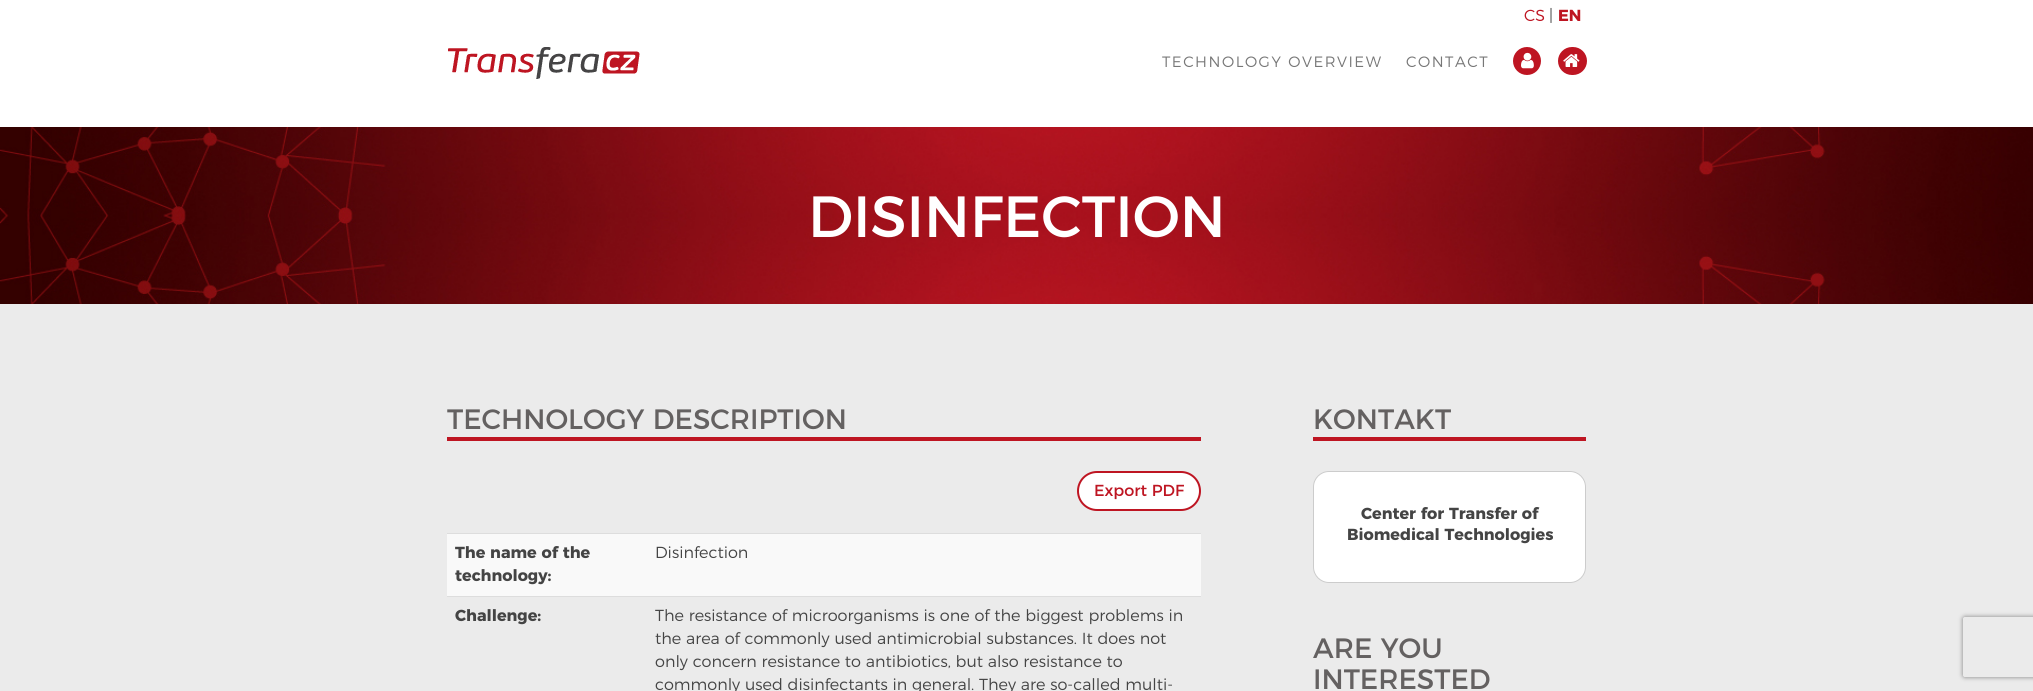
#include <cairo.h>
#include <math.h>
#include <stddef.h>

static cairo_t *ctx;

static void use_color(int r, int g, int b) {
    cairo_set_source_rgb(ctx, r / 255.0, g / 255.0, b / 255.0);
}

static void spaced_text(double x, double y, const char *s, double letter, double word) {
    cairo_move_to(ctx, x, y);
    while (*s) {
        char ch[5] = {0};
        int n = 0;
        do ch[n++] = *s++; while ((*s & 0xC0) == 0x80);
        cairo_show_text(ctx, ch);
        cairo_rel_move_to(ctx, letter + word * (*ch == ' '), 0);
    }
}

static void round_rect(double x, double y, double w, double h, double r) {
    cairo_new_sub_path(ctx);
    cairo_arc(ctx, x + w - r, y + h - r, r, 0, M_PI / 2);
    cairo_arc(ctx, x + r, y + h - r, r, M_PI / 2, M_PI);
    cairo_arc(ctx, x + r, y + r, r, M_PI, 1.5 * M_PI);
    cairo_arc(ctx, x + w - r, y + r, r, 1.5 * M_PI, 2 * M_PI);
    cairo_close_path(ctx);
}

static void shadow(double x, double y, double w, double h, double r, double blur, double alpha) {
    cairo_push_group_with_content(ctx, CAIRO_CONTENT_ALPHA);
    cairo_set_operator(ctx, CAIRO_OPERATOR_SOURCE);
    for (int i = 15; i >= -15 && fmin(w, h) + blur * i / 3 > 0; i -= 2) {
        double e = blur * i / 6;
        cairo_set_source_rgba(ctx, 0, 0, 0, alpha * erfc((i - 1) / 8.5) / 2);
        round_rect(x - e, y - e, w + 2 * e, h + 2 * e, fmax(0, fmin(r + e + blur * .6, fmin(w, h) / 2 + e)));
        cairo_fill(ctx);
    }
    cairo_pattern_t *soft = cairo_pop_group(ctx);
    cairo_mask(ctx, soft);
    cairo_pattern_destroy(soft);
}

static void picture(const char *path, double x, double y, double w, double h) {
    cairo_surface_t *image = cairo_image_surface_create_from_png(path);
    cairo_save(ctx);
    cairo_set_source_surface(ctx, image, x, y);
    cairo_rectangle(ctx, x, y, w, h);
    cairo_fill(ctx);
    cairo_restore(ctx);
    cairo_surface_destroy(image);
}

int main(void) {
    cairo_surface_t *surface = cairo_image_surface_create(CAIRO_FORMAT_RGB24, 2033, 691);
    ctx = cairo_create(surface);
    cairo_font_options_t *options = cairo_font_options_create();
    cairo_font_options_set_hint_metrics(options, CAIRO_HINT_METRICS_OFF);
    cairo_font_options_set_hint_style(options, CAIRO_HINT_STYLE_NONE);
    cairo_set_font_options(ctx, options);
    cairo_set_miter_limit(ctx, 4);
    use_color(255, 255, 255);
    cairo_paint(ctx);
    cairo_select_font_face(ctx, "Montserrat Light", CAIRO_FONT_SLANT_NORMAL, CAIRO_FONT_WEIGHT_NORMAL);
    cairo_set_font_size(ctx, 16);
    use_color(190, 21, 34);
    cairo_move_to(ctx, 1524, 21);
    cairo_show_text(ctx, "CS");
    use_color(68, 68, 68);
    cairo_move_to(ctx, 1549, 21);
    cairo_show_text(ctx, "|");
    cairo_select_font_face(ctx, "Montserrat", CAIRO_FONT_SLANT_NORMAL, CAIRO_FONT_WEIGHT_BOLD);
    use_color(190, 21, 34);
    cairo_move_to(ctx, 1558, 21);
    cairo_show_text(ctx, "EN");
    picture("img1.png", 448, 47, 192, 32);
    cairo_select_font_face(ctx, "Montserrat Light", CAIRO_FONT_SLANT_NORMAL, CAIRO_FONT_WEIGHT_NORMAL);
    cairo_set_font_size(ctx, 15);
    use_color(119, 119, 119);
    spaced_text(1162, 67, "TECHNOLOGY OVERVIEW", 1.5, 0);
    spaced_text(1406, 67, "CONTACT", 1.5, 0);
    use_color(190, 21, 34);
    cairo_new_path(ctx);
    cairo_arc(ctx, 1527, 61, 14, 0, 2 * M_PI);
    cairo_fill(ctx);
    picture("img2.png", 1521, 52, 13, 17);
    round_rect(1558, 47, 29, 28, 14);
    cairo_fill(ctx);
    picture("img3.png", 1563, 54, 17, 13);
    use_color(235, 235, 235);
    cairo_rectangle(ctx, 0, 304, 2033, 387);
    cairo_fill(ctx);
    picture("img4.png", 0, 127, 2033, 177);
    cairo_select_font_face(ctx, "Montserrat", CAIRO_FONT_SLANT_NORMAL, CAIRO_FONT_WEIGHT_NORMAL);
    cairo_set_font_size(ctx, 58);
    use_color(255, 255, 255);
    cairo_move_to(ctx, 808, 237);
    cairo_show_text(ctx, "DISINFECTION");
    use_color(190, 21, 34);
    cairo_rectangle(ctx, 447, 437, 754, 4);
    cairo_fill(ctx);
    cairo_set_font_size(ctx, 28);
    use_color(100, 97, 97);
    cairo_move_to(ctx, 447, 429);
    cairo_show_text(ctx, "TECHNOLOGY DESCRIPTION");
    use_color(255, 255, 255);
    round_rect(1078, 472, 122, 38, 19);
    cairo_fill_preserve(ctx);
    use_color(190, 21, 34);
    cairo_stroke(ctx);
    cairo_set_font_size(ctx, 16);
    cairo_move_to(ctx, 1094, 496);
    cairo_show_text(ctx, "Export PDF");
    use_color(249, 249, 249);
    cairo_rectangle(ctx, 447, 534, 754, 62);
    cairo_fill(ctx);
    cairo_select_font_face(ctx, "Montserrat", CAIRO_FONT_SLANT_NORMAL, CAIRO_FONT_WEIGHT_BOLD);
    use_color(68, 68, 68);
    cairo_move_to(ctx, 455, 558);
    cairo_show_text(ctx, "The name of the");
    cairo_move_to(ctx, 455, 581);
    cairo_show_text(ctx, "technology:");
    use_color(221, 221, 221);
    cairo_rectangle(ctx, 447, 533, 754, 1);
    cairo_fill(ctx);
    cairo_select_font_face(ctx, "Montserrat Light", CAIRO_FONT_SLANT_NORMAL, CAIRO_FONT_WEIGHT_NORMAL);
    use_color(68, 68, 68);
    cairo_move_to(ctx, 655, 558);
    cairo_show_text(ctx, "Disinfection");
    cairo_select_font_face(ctx, "Montserrat", CAIRO_FONT_SLANT_NORMAL, CAIRO_FONT_WEIGHT_BOLD);
    cairo_move_to(ctx, 455, 621);
    cairo_show_text(ctx, "Challenge:");
    use_color(221, 221, 221);
    cairo_rectangle(ctx, 447, 596, 754, 1);
    cairo_fill(ctx);
    cairo_select_font_face(ctx, "Montserrat Light", CAIRO_FONT_SLANT_NORMAL, CAIRO_FONT_WEIGHT_NORMAL);
    use_color(68, 68, 68);
    cairo_move_to(ctx, 655, 621);
    cairo_show_text(ctx, "The resistance of microorganisms is one of the biggest problems in");
    cairo_move_to(ctx, 655, 644);
    cairo_show_text(ctx, "the area of commonly used antimicrobial substances. It does not");
    cairo_move_to(ctx, 655, 667);
    cairo_show_text(ctx, "only concern resistance to antibiotics, but also resistance to");
    cairo_move_to(ctx, 655, 690);
    cairo_show_text(ctx, "commonly used disinfectants in general. They are so-called multi-");
    use_color(190, 21, 34);
    cairo_rectangle(ctx, 1313, 437, 273, 4);
    cairo_fill(ctx);
    cairo_select_font_face(ctx, "Montserrat", CAIRO_FONT_SLANT_NORMAL, CAIRO_FONT_WEIGHT_NORMAL);
    cairo_set_font_size(ctx, 28);
    use_color(100, 97, 97);
    cairo_move_to(ctx, 1313, 429);
    cairo_show_text(ctx, "KONTAKT");
    use_color(255, 255, 255);
    round_rect(1313.5, 471.5, 272, 111, 15.5);
    cairo_fill_preserve(ctx);
    use_color(204, 204, 204);
    cairo_set_line_width(ctx, 1);
    cairo_stroke(ctx);
    cairo_select_font_face(ctx, "Montserrat", CAIRO_FONT_SLANT_NORMAL, CAIRO_FONT_WEIGHT_BOLD);
    cairo_set_font_size(ctx, 16);
    use_color(68, 68, 68);
    cairo_move_to(ctx, 1361, 519);
    cairo_show_text(ctx, "Center for Transfer of");
    cairo_move_to(ctx, 1347, 540);
    cairo_show_text(ctx, "Biomedical Technologies");
    cairo_select_font_face(ctx, "Montserrat", CAIRO_FONT_SLANT_NORMAL, CAIRO_FONT_WEIGHT_NORMAL);
    cairo_set_font_size(ctx, 28);
    use_color(100, 97, 97);
    cairo_move_to(ctx, 1313, 658);
    cairo_show_text(ctx, "ARE YOU");
    cairo_move_to(ctx, 1313, 689);
    cairo_show_text(ctx, "INTERESTED");
    cairo_save(ctx);
    cairo_set_fill_rule(ctx, CAIRO_FILL_RULE_EVEN_ODD);
    cairo_new_path(ctx);
    cairo_move_to(ctx, 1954, 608);
    cairo_line_to(ctx, 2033, 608);
    cairo_line_to(ctx, 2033, 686);
    cairo_line_to(ctx, 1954, 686);
    cairo_close_path(ctx);
    cairo_move_to(ctx, 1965, 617);
    cairo_line_to(ctx, 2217, 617);
    cairo_curve_to(ctx, 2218, 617, 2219, 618, 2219, 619);
    cairo_line_to(ctx, 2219, 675);
    cairo_curve_to(ctx, 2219, 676, 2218, 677, 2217, 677);
    cairo_line_to(ctx, 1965, 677);
    cairo_curve_to(ctx, 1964, 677, 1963, 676, 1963, 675);
    cairo_line_to(ctx, 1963, 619);
    cairo_curve_to(ctx, 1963, 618, 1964, 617, 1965, 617);
    cairo_close_path(ctx);
    cairo_clip(ctx);
    use_color(128, 128, 128);
    shadow(1963, 617, 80, 60, 2, 2.5, 1);
    cairo_restore(ctx);
    cairo_surface_write_to_png(surface, "result.png");
    cairo_font_options_destroy(options);
    cairo_destroy(ctx);
    cairo_surface_destroy(surface);
    return 0;
}
